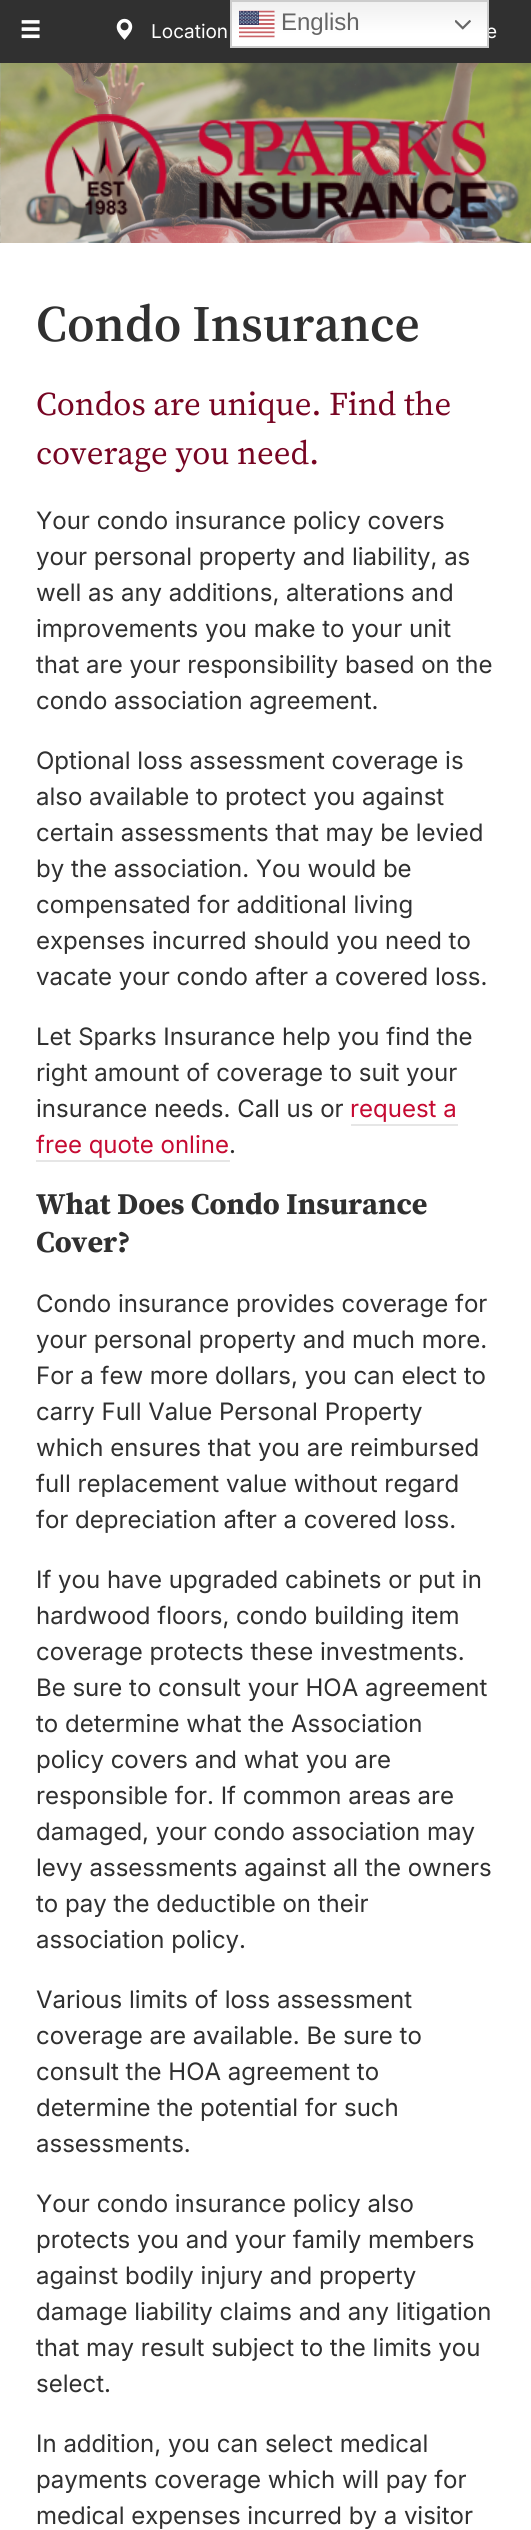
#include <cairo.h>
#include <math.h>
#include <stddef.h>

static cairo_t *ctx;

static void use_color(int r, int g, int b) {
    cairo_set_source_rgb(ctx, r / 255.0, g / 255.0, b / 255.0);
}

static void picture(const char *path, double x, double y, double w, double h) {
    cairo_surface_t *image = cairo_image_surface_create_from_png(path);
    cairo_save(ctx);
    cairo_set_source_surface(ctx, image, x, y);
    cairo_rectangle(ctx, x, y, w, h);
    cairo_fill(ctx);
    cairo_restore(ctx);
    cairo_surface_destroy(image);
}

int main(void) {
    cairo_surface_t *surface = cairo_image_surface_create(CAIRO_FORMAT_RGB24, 531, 2530);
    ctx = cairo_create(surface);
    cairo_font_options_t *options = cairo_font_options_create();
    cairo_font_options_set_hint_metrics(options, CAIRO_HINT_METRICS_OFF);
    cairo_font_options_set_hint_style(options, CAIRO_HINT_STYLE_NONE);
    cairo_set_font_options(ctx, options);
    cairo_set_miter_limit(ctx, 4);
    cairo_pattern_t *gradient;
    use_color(48, 48, 48);
    cairo_paint(ctx);
    gradient = cairo_pattern_create_linear(359, 0, 359, 48);
    cairo_pattern_add_color_stop_rgba(gradient, 0, 0.937, 0.937, 0.937, 1);
    cairo_pattern_add_color_stop_rgba(gradient, 0.7, 1, 1, 1, 1);
    cairo_set_source(ctx, gradient);
    cairo_pattern_destroy(gradient);
    cairo_rectangle(ctx, 232, 2, 255, 44);
    cairo_fill(ctx);
    cairo_select_font_face(ctx, "Inter", CAIRO_FONT_SLANT_NORMAL, CAIRO_FONT_WEIGHT_NORMAL);
    cairo_set_font_size(ctx, 19);
    use_color(255, 255, 255);
    cairo_move_to(ctx, 486, 38);
    cairo_show_text(ctx, "e");
    cairo_rectangle(ctx, 231, 1, 257, 46);
    use_color(204, 204, 204);
    cairo_stroke(ctx);
    picture("img1.png", 239, 10, 36, 28);
    cairo_select_font_face(ctx, "Liberation Sans", CAIRO_FONT_SLANT_NORMAL, CAIRO_FONT_WEIGHT_NORMAL);
    cairo_set_font_size(ctx, 24);
    use_color(102, 102, 102);
    cairo_move_to(ctx, 281, 30);
    cairo_show_text(ctx, "English");
    picture("img2.png", 455, 20, 16, 10);
    picture("img3.png", 21, 20, 19, 19);
    picture("img4.png", 116, 18, 17, 22);
    cairo_select_font_face(ctx, "Inter", CAIRO_FONT_SLANT_NORMAL, CAIRO_FONT_WEIGHT_NORMAL);
    cairo_set_font_size(ctx, 19);
    use_color(255, 255, 255);
    cairo_move_to(ctx, 151, 38);
    cairo_show_text(ctx, "Location");
    picture("img5.png", 0, 63, 531, 180);
    picture("img6.png", 44, 114, 444, 105);
    cairo_rectangle(ctx, 0, 243, 531, 2287);
    cairo_fill(ctx);
    cairo_select_font_face(ctx, "Source Serif 4 SemiBold", CAIRO_FONT_SLANT_NORMAL, CAIRO_FONT_WEIGHT_NORMAL);
    cairo_set_font_size(ctx, 51);
    use_color(48, 48, 48);
    cairo_move_to(ctx, 36, 341);
    cairo_show_text(ctx, "Condo Insurance");
    cairo_select_font_face(ctx, "Source Serif 4", CAIRO_FONT_SLANT_NORMAL, CAIRO_FONT_WEIGHT_NORMAL);
    cairo_set_font_size(ctx, 33);
    use_color(119, 5, 35);
    cairo_move_to(ctx, 36, 415);
    cairo_show_text(ctx, "Condos are unique. Find the");
    cairo_move_to(ctx, 36, 464);
    cairo_show_text(ctx, "coverage you need.");
    cairo_select_font_face(ctx, "Inter", CAIRO_FONT_SLANT_NORMAL, CAIRO_FONT_WEIGHT_NORMAL);
    cairo_set_font_size(ctx, 24);
    use_color(48, 48, 48);
    cairo_move_to(ctx, 36, 529);
    cairo_show_text(ctx, "Your condo insurance policy covers");
    cairo_move_to(ctx, 36, 565);
    cairo_show_text(ctx, "your personal property and liability, as");
    cairo_move_to(ctx, 36, 601);
    cairo_show_text(ctx, "well as any additions, alterations and");
    cairo_move_to(ctx, 36, 637);
    cairo_show_text(ctx, "improvements you make to your unit");
    cairo_move_to(ctx, 36, 673);
    cairo_show_text(ctx, "that are your responsibility based on the");
    cairo_move_to(ctx, 36, 709);
    cairo_show_text(ctx, "condo association agreement.");
    cairo_move_to(ctx, 36, 769);
    cairo_show_text(ctx, "Optional loss assessment coverage is");
    cairo_move_to(ctx, 36, 805);
    cairo_show_text(ctx, "also available to protect you against");
    cairo_move_to(ctx, 36, 841);
    cairo_show_text(ctx, "certain assessments that may be levied");
    cairo_move_to(ctx, 36, 877);
    cairo_show_text(ctx, "by the association. You would be");
    cairo_move_to(ctx, 36, 913);
    cairo_show_text(ctx, "compensated for additional living");
    cairo_move_to(ctx, 36, 949);
    cairo_show_text(ctx, "expenses incurred should you need to");
    cairo_move_to(ctx, 36, 985);
    cairo_show_text(ctx, "vacate your condo after a covered loss.");
    cairo_move_to(ctx, 36, 1045);
    cairo_show_text(ctx, "Let Sparks Insurance help you find the");
    cairo_move_to(ctx, 36, 1081);
    cairo_show_text(ctx, "right amount of coverage to suit your");
    cairo_move_to(ctx, 36, 1117);
    cairo_show_text(ctx, "insurance needs. Call us or");
    use_color(198, 10, 50);
    cairo_move_to(ctx, 350, 1117);
    cairo_show_text(ctx, "request a");
    use_color(230, 230, 230);
    cairo_rectangle(ctx, 351, 1124, 107, 2);
    cairo_fill(ctx);
    use_color(198, 10, 50);
    cairo_move_to(ctx, 36, 1153);
    cairo_show_text(ctx, "free quote online");
    use_color(230, 230, 230);
    cairo_rectangle(ctx, 36, 1160, 194, 2);
    cairo_fill(ctx);
    use_color(48, 48, 48);
    cairo_move_to(ctx, 229, 1153);
    cairo_show_text(ctx, ".");
    cairo_select_font_face(ctx, "Source Serif 4", CAIRO_FONT_SLANT_NORMAL, CAIRO_FONT_WEIGHT_BOLD);
    cairo_set_font_size(ctx, 30);
    cairo_move_to(ctx, 36, 1214);
    cairo_show_text(ctx, "What Does Condo Insurance");
    cairo_move_to(ctx, 36, 1252);
    cairo_show_text(ctx, "Cover?");
    cairo_select_font_face(ctx, "Inter", CAIRO_FONT_SLANT_NORMAL, CAIRO_FONT_WEIGHT_NORMAL);
    cairo_set_font_size(ctx, 24);
    cairo_move_to(ctx, 36, 1312);
    cairo_show_text(ctx, "Condo insurance provides coverage for");
    cairo_move_to(ctx, 36, 1348);
    cairo_show_text(ctx, "your personal property and much more.");
    cairo_move_to(ctx, 36, 1384);
    cairo_show_text(ctx, "For a few more dollars, you can elect to");
    cairo_move_to(ctx, 36, 1420);
    cairo_show_text(ctx, "carry Full Value Personal Property");
    cairo_move_to(ctx, 36, 1456);
    cairo_show_text(ctx, "which ensures that you are reimbursed");
    cairo_move_to(ctx, 36, 1492);
    cairo_show_text(ctx, "full replacement value without regard");
    cairo_move_to(ctx, 36, 1528);
    cairo_show_text(ctx, "for depreciation after a covered loss.");
    cairo_move_to(ctx, 36, 1588);
    cairo_show_text(ctx, "If you have upgraded cabinets or put in");
    cairo_move_to(ctx, 36, 1624);
    cairo_show_text(ctx, "hardwood floors, condo building item");
    cairo_move_to(ctx, 36, 1660);
    cairo_show_text(ctx, "coverage protects these investments.");
    cairo_move_to(ctx, 36, 1696);
    cairo_show_text(ctx, "Be sure to consult your HOA agreement");
    cairo_move_to(ctx, 36, 1732);
    cairo_show_text(ctx, "to determine what the Association");
    cairo_move_to(ctx, 36, 1768);
    cairo_show_text(ctx, "policy covers and what you are");
    cairo_move_to(ctx, 36, 1804);
    cairo_show_text(ctx, "responsible for. If common areas are");
    cairo_move_to(ctx, 36, 1840);
    cairo_show_text(ctx, "damaged, your condo association may");
    cairo_move_to(ctx, 36, 1876);
    cairo_show_text(ctx, "levy assessments against all the owners");
    cairo_move_to(ctx, 36, 1912);
    cairo_show_text(ctx, "to pay the deductible on their");
    cairo_move_to(ctx, 36, 1948);
    cairo_show_text(ctx, "association policy.");
    cairo_move_to(ctx, 36, 2008);
    cairo_show_text(ctx, "Various limits of loss assessment");
    cairo_move_to(ctx, 36, 2044);
    cairo_show_text(ctx, "coverage are available. Be sure to");
    cairo_move_to(ctx, 36, 2080);
    cairo_show_text(ctx, "consult the HOA agreement to");
    cairo_move_to(ctx, 36, 2116);
    cairo_show_text(ctx, "determine the potential for such");
    cairo_move_to(ctx, 36, 2152);
    cairo_show_text(ctx, "assessments.");
    cairo_move_to(ctx, 36, 2212);
    cairo_show_text(ctx, "Your condo insurance policy also");
    cairo_move_to(ctx, 36, 2248);
    cairo_show_text(ctx, "protects you and your family members");
    cairo_move_to(ctx, 36, 2284);
    cairo_show_text(ctx, "against bodily injury and property");
    cairo_move_to(ctx, 36, 2320);
    cairo_show_text(ctx, "damage liability claims and any litigation");
    cairo_move_to(ctx, 36, 2356);
    cairo_show_text(ctx, "that may result subject to the limits you");
    cairo_move_to(ctx, 36, 2392);
    cairo_show_text(ctx, "select.");
    cairo_move_to(ctx, 36, 2452);
    cairo_show_text(ctx, "In addition, you can select medical");
    cairo_move_to(ctx, 36, 2488);
    cairo_show_text(ctx, "payments coverage which will pay for");
    cairo_move_to(ctx, 36, 2524);
    cairo_show_text(ctx, "medical expenses incurred by a visitor");
    cairo_surface_write_to_png(surface, "result.png");
    cairo_font_options_destroy(options);
    cairo_destroy(ctx);
    cairo_surface_destroy(surface);
    return 0;
}
